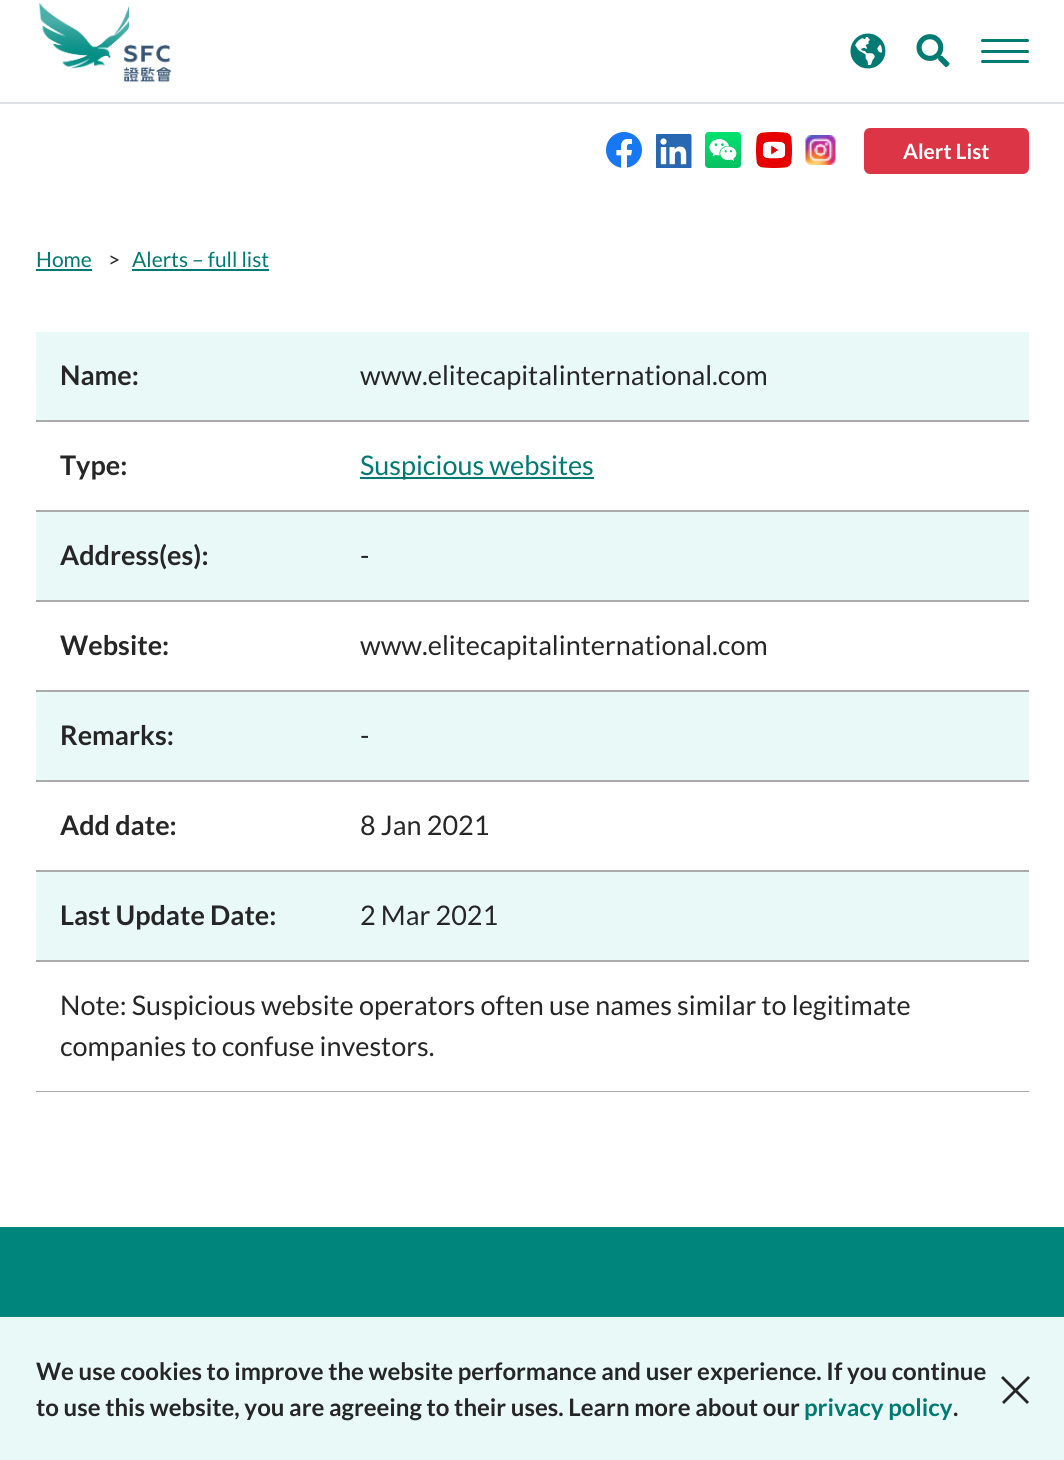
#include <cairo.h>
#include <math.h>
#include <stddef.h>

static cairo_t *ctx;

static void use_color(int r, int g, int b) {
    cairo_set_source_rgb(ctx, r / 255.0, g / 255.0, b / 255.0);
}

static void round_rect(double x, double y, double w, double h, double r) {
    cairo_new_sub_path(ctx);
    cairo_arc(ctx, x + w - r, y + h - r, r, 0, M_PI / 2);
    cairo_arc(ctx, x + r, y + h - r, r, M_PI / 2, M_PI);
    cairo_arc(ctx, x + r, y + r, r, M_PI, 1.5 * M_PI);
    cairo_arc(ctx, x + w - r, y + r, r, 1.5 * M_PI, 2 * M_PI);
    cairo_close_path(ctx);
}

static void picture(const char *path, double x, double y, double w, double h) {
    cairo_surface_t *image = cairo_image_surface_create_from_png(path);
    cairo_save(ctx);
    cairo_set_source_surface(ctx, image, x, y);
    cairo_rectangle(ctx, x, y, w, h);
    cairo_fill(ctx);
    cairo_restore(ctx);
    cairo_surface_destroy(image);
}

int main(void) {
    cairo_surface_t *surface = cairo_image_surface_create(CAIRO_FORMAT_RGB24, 1064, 1460);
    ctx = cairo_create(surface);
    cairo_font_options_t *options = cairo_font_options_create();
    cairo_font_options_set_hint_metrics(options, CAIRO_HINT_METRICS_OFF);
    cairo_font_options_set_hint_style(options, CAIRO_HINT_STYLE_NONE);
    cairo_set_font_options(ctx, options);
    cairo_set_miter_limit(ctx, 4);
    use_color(255, 255, 255);
    cairo_paint(ctx);
    picture("img1.png", 38, 2, 134, 81);
    picture("img2.png", 850, 33, 36, 36);
    picture("img3.png", 916, 34, 34, 34);
    use_color(0, 122, 114);
    round_rect(981, 39, 48, 3, 1.5);
    cairo_fill(ctx);
    round_rect(981, 50, 48, 3, 1.5);
    cairo_fill(ctx);
    round_rect(981, 60, 48, 3, 1.5);
    cairo_fill(ctx);
    use_color(222, 226, 230);
    cairo_rectangle(ctx, 0, 102, 1064, 2);
    cairo_fill(ctx);
    picture("img4.png", 606, 132, 36, 36);
    picture("img5.png", 656, 134, 36, 34);
    picture("img6.png", 705, 132, 36, 36);
    picture("img7.png", 756, 132, 36, 36);
    picture("img8.png", 805, 135, 31, 30);
    use_color(220, 53, 69);
    round_rect(865, 129, 163, 44, 5);
    cairo_fill_preserve(ctx);
    cairo_stroke(ctx);
    cairo_select_font_face(ctx, "Lato", CAIRO_FONT_SLANT_NORMAL, CAIRO_FONT_WEIGHT_BOLD);
    cairo_set_font_size(ctx, 21);
    use_color(255, 255, 255);
    cairo_move_to(ctx, 903, 159);
    cairo_show_text(ctx, "Alert List");
    cairo_select_font_face(ctx, "Lato", CAIRO_FONT_SLANT_NORMAL, CAIRO_FONT_WEIGHT_NORMAL);
    use_color(0, 122, 114);
    cairo_move_to(ctx, 36, 267);
    cairo_show_text(ctx, "Home");
    cairo_rectangle(ctx, 36, 269, 56, 2);
    cairo_fill(ctx);
    use_color(38, 38, 38);
    cairo_move_to(ctx, 108, 267);
    cairo_show_text(ctx, ">");
    use_color(0, 122, 114);
    cairo_move_to(ctx, 132, 267);
    cairo_show_text(ctx, "Alerts – full list");
    cairo_rectangle(ctx, 132, 269, 137, 2);
    cairo_fill(ctx);
    use_color(233, 249, 248);
    cairo_rectangle(ctx, 36, 332, 993, 88);
    cairo_fill(ctx);
    cairo_select_font_face(ctx, "Lato", CAIRO_FONT_SLANT_NORMAL, CAIRO_FONT_WEIGHT_BOLD);
    cairo_set_font_size(ctx, 27);
    use_color(38, 38, 38);
    cairo_move_to(ctx, 60, 385);
    cairo_show_text(ctx, "Name:");
    use_color(170, 170, 170);
    cairo_rectangle(ctx, 36, 420, 993, 2);
    cairo_fill(ctx);
    cairo_select_font_face(ctx, "Lato", CAIRO_FONT_SLANT_NORMAL, CAIRO_FONT_WEIGHT_NORMAL);
    use_color(38, 38, 38);
    cairo_move_to(ctx, 360, 385);
    cairo_show_text(ctx, "www.elitecapitalinternational.com");
    cairo_select_font_face(ctx, "Lato", CAIRO_FONT_SLANT_NORMAL, CAIRO_FONT_WEIGHT_BOLD);
    cairo_move_to(ctx, 60, 475);
    cairo_show_text(ctx, "Type:");
    use_color(170, 170, 170);
    cairo_rectangle(ctx, 36, 510, 993, 2);
    cairo_fill(ctx);
    use_color(0, 122, 114);
    cairo_rectangle(ctx, 360, 477, 234, 2);
    cairo_fill(ctx);
    cairo_select_font_face(ctx, "Lato", CAIRO_FONT_SLANT_NORMAL, CAIRO_FONT_WEIGHT_NORMAL);
    cairo_move_to(ctx, 360, 475);
    cairo_show_text(ctx, "Suspicious websites");
    use_color(233, 249, 248);
    cairo_rectangle(ctx, 36, 512, 993, 88);
    cairo_fill(ctx);
    cairo_select_font_face(ctx, "Lato", CAIRO_FONT_SLANT_NORMAL, CAIRO_FONT_WEIGHT_BOLD);
    use_color(38, 38, 38);
    cairo_move_to(ctx, 60, 565);
    cairo_show_text(ctx, "Address(es):");
    use_color(170, 170, 170);
    cairo_rectangle(ctx, 36, 600, 993, 2);
    cairo_fill(ctx);
    cairo_select_font_face(ctx, "Lato", CAIRO_FONT_SLANT_NORMAL, CAIRO_FONT_WEIGHT_NORMAL);
    use_color(38, 38, 38);
    cairo_move_to(ctx, 360, 565);
    cairo_show_text(ctx, "-");
    cairo_select_font_face(ctx, "Lato", CAIRO_FONT_SLANT_NORMAL, CAIRO_FONT_WEIGHT_BOLD);
    cairo_move_to(ctx, 60, 655);
    cairo_show_text(ctx, "Website:");
    use_color(170, 170, 170);
    cairo_rectangle(ctx, 36, 690, 993, 2);
    cairo_fill(ctx);
    cairo_select_font_face(ctx, "Lato", CAIRO_FONT_SLANT_NORMAL, CAIRO_FONT_WEIGHT_NORMAL);
    use_color(38, 38, 38);
    cairo_move_to(ctx, 360, 655);
    cairo_show_text(ctx, "www.elitecapitalinternational.com");
    use_color(233, 249, 248);
    cairo_rectangle(ctx, 36, 692, 993, 88);
    cairo_fill(ctx);
    cairo_select_font_face(ctx, "Lato", CAIRO_FONT_SLANT_NORMAL, CAIRO_FONT_WEIGHT_BOLD);
    use_color(38, 38, 38);
    cairo_move_to(ctx, 60, 745);
    cairo_show_text(ctx, "Remarks:");
    use_color(170, 170, 170);
    cairo_rectangle(ctx, 36, 780, 993, 2);
    cairo_fill(ctx);
    cairo_select_font_face(ctx, "Lato", CAIRO_FONT_SLANT_NORMAL, CAIRO_FONT_WEIGHT_NORMAL);
    use_color(38, 38, 38);
    cairo_move_to(ctx, 360, 745);
    cairo_show_text(ctx, "-");
    cairo_select_font_face(ctx, "Lato", CAIRO_FONT_SLANT_NORMAL, CAIRO_FONT_WEIGHT_BOLD);
    cairo_move_to(ctx, 60, 835);
    cairo_show_text(ctx, "Add date:");
    use_color(170, 170, 170);
    cairo_rectangle(ctx, 36, 870, 993, 2);
    cairo_fill(ctx);
    cairo_select_font_face(ctx, "Lato", CAIRO_FONT_SLANT_NORMAL, CAIRO_FONT_WEIGHT_NORMAL);
    use_color(38, 38, 38);
    cairo_move_to(ctx, 360, 835);
    cairo_show_text(ctx, "8 Jan 2021");
    use_color(233, 249, 248);
    cairo_rectangle(ctx, 36, 872, 993, 88);
    cairo_fill(ctx);
    cairo_select_font_face(ctx, "Lato", CAIRO_FONT_SLANT_NORMAL, CAIRO_FONT_WEIGHT_BOLD);
    use_color(38, 38, 38);
    cairo_move_to(ctx, 60, 925);
    cairo_show_text(ctx, "Last Update Date:");
    use_color(170, 170, 170);
    cairo_rectangle(ctx, 36, 960, 993, 2);
    cairo_fill(ctx);
    cairo_select_font_face(ctx, "Lato", CAIRO_FONT_SLANT_NORMAL, CAIRO_FONT_WEIGHT_NORMAL);
    use_color(38, 38, 38);
    cairo_move_to(ctx, 360, 925);
    cairo_show_text(ctx, "2 Mar 2021");
    use_color(170, 170, 170);
    cairo_rectangle(ctx, 36, 1091, 993, 1);
    cairo_fill(ctx);
    use_color(38, 38, 38);
    cairo_move_to(ctx, 60, 1015);
    cairo_show_text(ctx, "Note: Suspicious website operators often use names similar to legitimate");
    cairo_move_to(ctx, 60, 1056);
    cairo_show_text(ctx, "companies to confuse investors.");
    use_color(0, 133, 124);
    cairo_rectangle(ctx, 0, 1227, 1064, 90);
    cairo_fill(ctx);
    use_color(232, 249, 248);
    cairo_rectangle(ctx, 0, 1317, 1064, 143);
    cairo_fill(ctx);
    cairo_select_font_face(ctx, "Lato", CAIRO_FONT_SLANT_NORMAL, CAIRO_FONT_WEIGHT_BOLD);
    cairo_set_font_size(ctx, 24);
    use_color(38, 38, 38);
    cairo_move_to(ctx, 36, 1380);
    cairo_show_text(ctx, "We use cookies to improve the website performance and user experience. If you continue");
    cairo_move_to(ctx, 36, 1416);
    cairo_show_text(ctx, "to use this website, you are agreeing to their uses. Learn more about our");
    use_color(0, 122, 114);
    cairo_move_to(ctx, 804, 1416);
    cairo_show_text(ctx, "privacy policy");
    use_color(38, 38, 38);
    cairo_move_to(ctx, 953, 1416);
    cairo_show_text(ctx, ".");
    cairo_new_path(ctx);
    cairo_move_to(ctx, 1003, 1376);
    cairo_line_to(ctx, 1029, 1402);
    cairo_line_to(ctx, 1027, 1404);
    cairo_line_to(ctx, 1001, 1378);
    cairo_close_path(ctx);
    cairo_fill(ctx);
    cairo_new_path(ctx);
    cairo_move_to(ctx, 1002, 1402);
    cairo_line_to(ctx, 1028, 1376);
    cairo_line_to(ctx, 1030, 1378);
    cairo_line_to(ctx, 1004, 1404);
    cairo_close_path(ctx);
    cairo_fill(ctx);
    cairo_surface_write_to_png(surface, "result.png");
    cairo_font_options_destroy(options);
    cairo_destroy(ctx);
    cairo_surface_destroy(surface);
    return 0;
}
